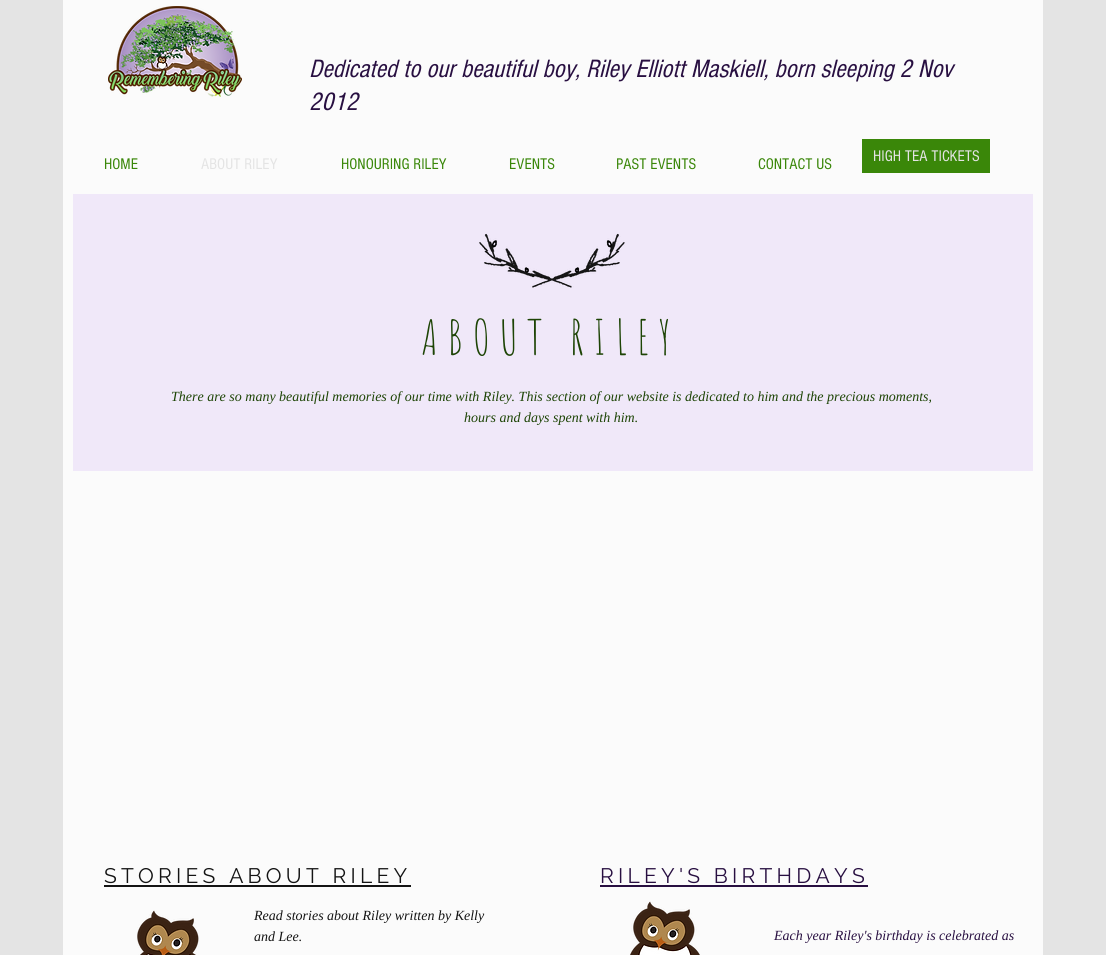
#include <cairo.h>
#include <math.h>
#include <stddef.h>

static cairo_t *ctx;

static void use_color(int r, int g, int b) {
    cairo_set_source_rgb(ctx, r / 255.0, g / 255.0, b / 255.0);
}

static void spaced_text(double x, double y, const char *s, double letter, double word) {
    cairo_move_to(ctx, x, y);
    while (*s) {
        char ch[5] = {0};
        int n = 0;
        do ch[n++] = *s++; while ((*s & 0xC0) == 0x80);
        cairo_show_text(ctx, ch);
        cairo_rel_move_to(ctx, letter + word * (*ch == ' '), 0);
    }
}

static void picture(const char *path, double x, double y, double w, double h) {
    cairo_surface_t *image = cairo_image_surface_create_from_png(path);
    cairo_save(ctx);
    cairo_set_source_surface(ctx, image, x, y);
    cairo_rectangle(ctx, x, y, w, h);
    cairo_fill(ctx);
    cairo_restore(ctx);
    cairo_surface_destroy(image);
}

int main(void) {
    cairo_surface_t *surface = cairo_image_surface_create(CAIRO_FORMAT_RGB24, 1106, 955);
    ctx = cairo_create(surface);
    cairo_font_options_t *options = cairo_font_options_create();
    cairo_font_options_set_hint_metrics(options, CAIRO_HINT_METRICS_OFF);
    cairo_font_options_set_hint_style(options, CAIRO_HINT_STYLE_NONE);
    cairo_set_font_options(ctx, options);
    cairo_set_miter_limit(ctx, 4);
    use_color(228, 228, 228);
    cairo_paint(ctx);
    use_color(251, 251, 251);
    cairo_rectangle(ctx, 63, 0, 980, 955);
    cairo_fill(ctx);
    picture("img1.png", 108, 6, 134, 91);
    cairo_select_font_face(ctx, "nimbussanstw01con", CAIRO_FONT_SLANT_ITALIC, CAIRO_FONT_WEIGHT_NORMAL);
    cairo_set_font_size(ctx, 26);
    use_color(40, 15, 65);
    cairo_move_to(ctx, 309, 77);
    cairo_show_text(ctx, "Dedicated to our beautiful boy, Riley Elliott Maskiell, born sleeping 2 Nov");
    cairo_move_to(ctx, 309, 110);
    cairo_show_text(ctx, "2012");
    use_color(58, 135, 9);
    cairo_rectangle(ctx, 862, 139, 128, 34);
    cairo_fill(ctx);
    cairo_select_font_face(ctx, "nimbussanstw01con", CAIRO_FONT_SLANT_NORMAL, CAIRO_FONT_WEIGHT_NORMAL);
    cairo_set_font_size(ctx, 16);
    use_color(228, 228, 228);
    cairo_move_to(ctx, 873, 161);
    cairo_show_text(ctx, "HIGH TEA TICKETS");
    use_color(58, 135, 9);
    cairo_move_to(ctx, 104, 169);
    cairo_show_text(ctx, "HOME");
    use_color(228, 228, 228);
    cairo_move_to(ctx, 201, 169);
    cairo_show_text(ctx, "ABOUT RILEY");
    use_color(58, 135, 9);
    cairo_move_to(ctx, 341, 169);
    cairo_show_text(ctx, "HONOURING RILEY");
    cairo_move_to(ctx, 509, 169);
    cairo_show_text(ctx, "EVENTS");
    cairo_move_to(ctx, 616, 169);
    cairo_show_text(ctx, "PAST EVENTS");
    cairo_move_to(ctx, 758, 169);
    cairo_show_text(ctx, "CONTACT US");
    use_color(240, 232, 249);
    cairo_rectangle(ctx, 73, 194, 960, 277);
    cairo_fill(ctx);
    picture("img2.png", 479, 233, 146, 55);
    cairo_select_font_face(ctx, "Amatic SC", CAIRO_FONT_SLANT_NORMAL, CAIRO_FONT_WEIGHT_NORMAL);
    cairo_set_font_size(ctx, 48);
    use_color(29, 68, 5);
    spaced_text(421, 355, "ABOUT RILEY", 9.6, 0);
    cairo_select_font_face(ctx, "Liberation Serif", CAIRO_FONT_SLANT_ITALIC, CAIRO_FONT_WEIGHT_NORMAL);
    cairo_set_font_size(ctx, 14);
    cairo_move_to(ctx, 171, 401);
    cairo_show_text(ctx, "There are so many beautiful memories of our time with Riley. This section of our website is dedicated to him and the precious moments,");
    cairo_move_to(ctx, 464, 422);
    cairo_show_text(ctx, "hours and days spent with him.");
    cairo_select_font_face(ctx, "Raleway", CAIRO_FONT_SLANT_NORMAL, CAIRO_FONT_WEIGHT_NORMAL);
    cairo_set_font_size(ctx, 21);
    use_color(20, 20, 20);
    spaced_text(104, 883, "STORIES ABOUT RILEY", 4.25, 0);
    cairo_rectangle(ctx, 104, 885, 307, 2);
    cairo_fill(ctx);
    use_color(40, 15, 65);
    spaced_text(600, 883, "RILEY'S BIRTHDAYS", 4.25, 0);
    cairo_rectangle(ctx, 600, 885, 268, 2);
    cairo_fill(ctx);
    picture("img3.png", 137, 910, 62, 45);
    cairo_select_font_face(ctx, "Liberation Serif", CAIRO_FONT_SLANT_ITALIC, CAIRO_FONT_WEIGHT_NORMAL);
    cairo_set_font_size(ctx, 14);
    use_color(20, 20, 20);
    cairo_move_to(ctx, 254, 920);
    cairo_show_text(ctx, "Read stories about Riley written by Kelly");
    cairo_move_to(ctx, 254, 941);
    cairo_show_text(ctx, "and Lee.");
    picture("img4.png", 630, 901, 70, 54);
    use_color(40, 15, 65);
    cairo_move_to(ctx, 774, 940);
    cairo_show_text(ctx, "Each year Riley's birthday is celebrated as");
    cairo_surface_write_to_png(surface, "result.png");
    cairo_font_options_destroy(options);
    cairo_destroy(ctx);
    cairo_surface_destroy(surface);
    return 0;
}
